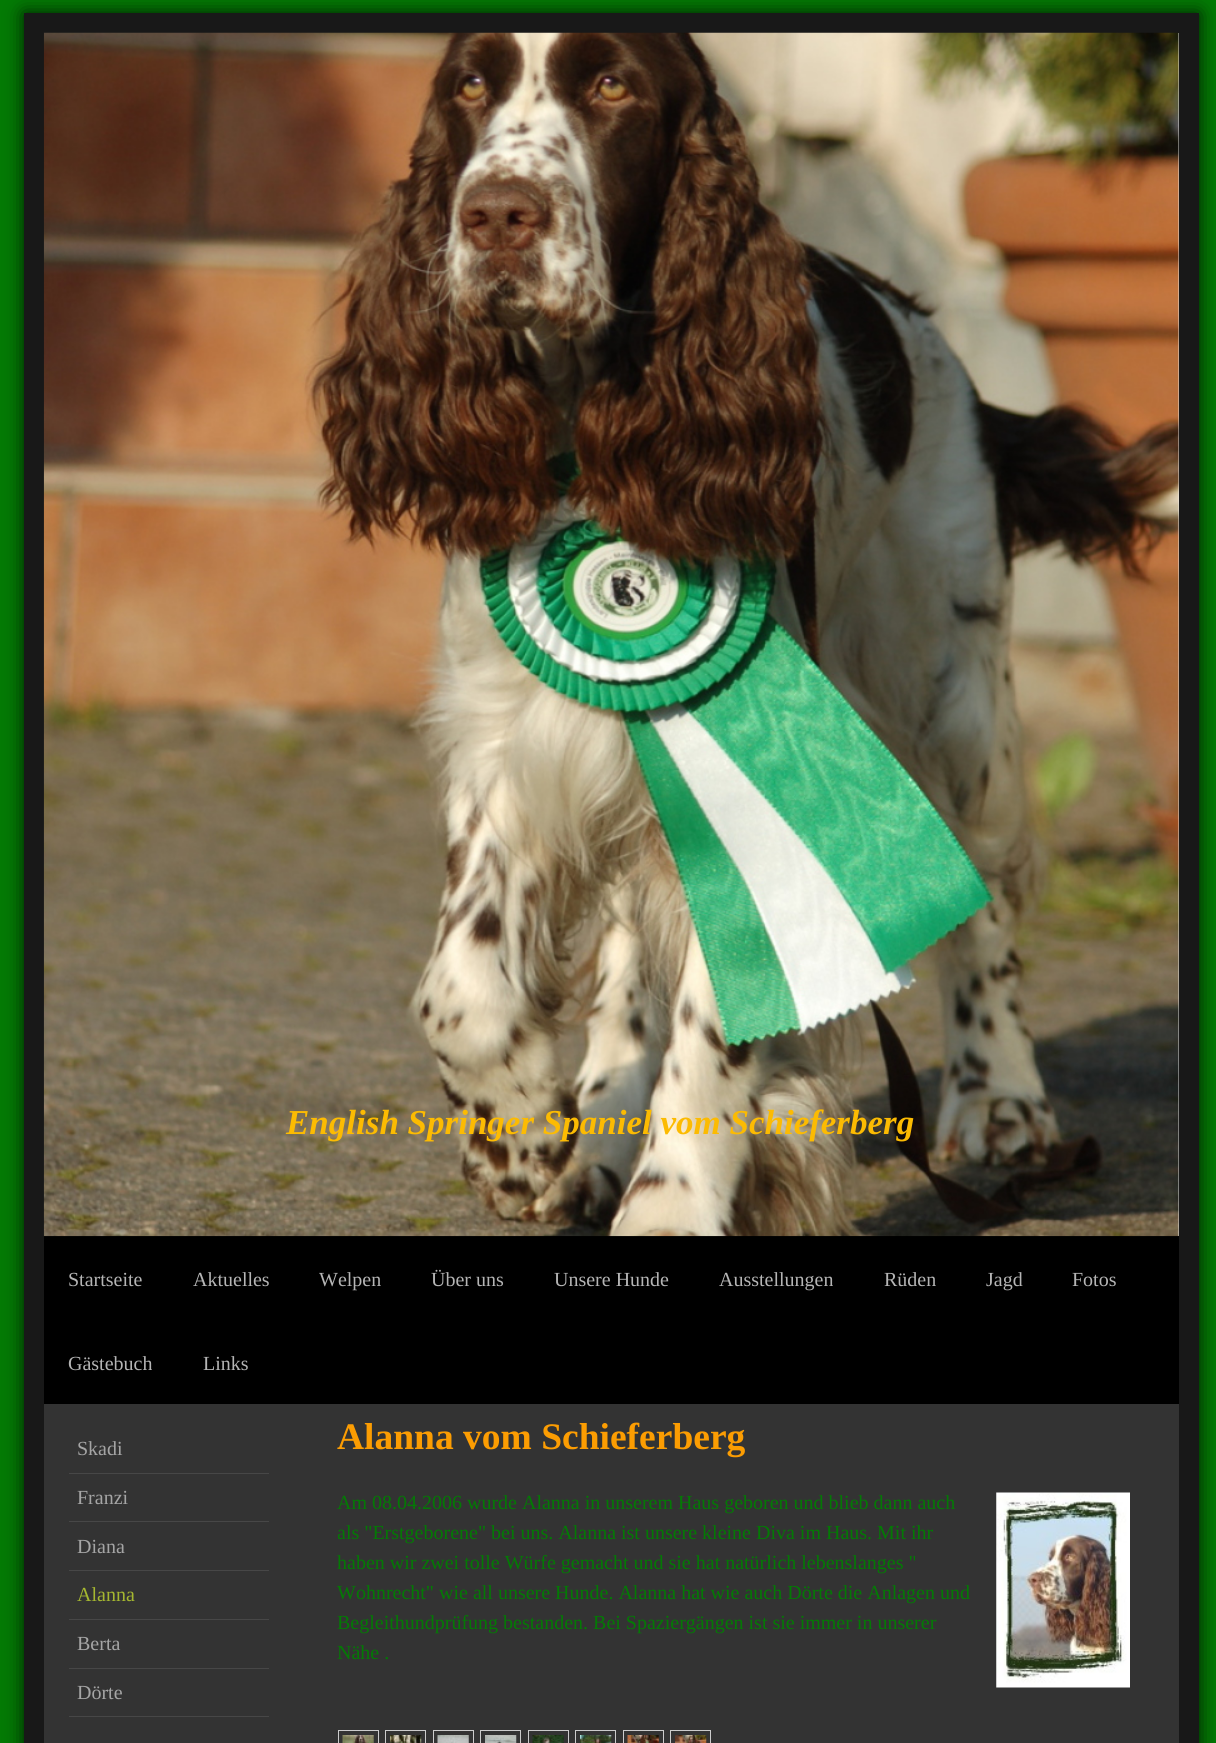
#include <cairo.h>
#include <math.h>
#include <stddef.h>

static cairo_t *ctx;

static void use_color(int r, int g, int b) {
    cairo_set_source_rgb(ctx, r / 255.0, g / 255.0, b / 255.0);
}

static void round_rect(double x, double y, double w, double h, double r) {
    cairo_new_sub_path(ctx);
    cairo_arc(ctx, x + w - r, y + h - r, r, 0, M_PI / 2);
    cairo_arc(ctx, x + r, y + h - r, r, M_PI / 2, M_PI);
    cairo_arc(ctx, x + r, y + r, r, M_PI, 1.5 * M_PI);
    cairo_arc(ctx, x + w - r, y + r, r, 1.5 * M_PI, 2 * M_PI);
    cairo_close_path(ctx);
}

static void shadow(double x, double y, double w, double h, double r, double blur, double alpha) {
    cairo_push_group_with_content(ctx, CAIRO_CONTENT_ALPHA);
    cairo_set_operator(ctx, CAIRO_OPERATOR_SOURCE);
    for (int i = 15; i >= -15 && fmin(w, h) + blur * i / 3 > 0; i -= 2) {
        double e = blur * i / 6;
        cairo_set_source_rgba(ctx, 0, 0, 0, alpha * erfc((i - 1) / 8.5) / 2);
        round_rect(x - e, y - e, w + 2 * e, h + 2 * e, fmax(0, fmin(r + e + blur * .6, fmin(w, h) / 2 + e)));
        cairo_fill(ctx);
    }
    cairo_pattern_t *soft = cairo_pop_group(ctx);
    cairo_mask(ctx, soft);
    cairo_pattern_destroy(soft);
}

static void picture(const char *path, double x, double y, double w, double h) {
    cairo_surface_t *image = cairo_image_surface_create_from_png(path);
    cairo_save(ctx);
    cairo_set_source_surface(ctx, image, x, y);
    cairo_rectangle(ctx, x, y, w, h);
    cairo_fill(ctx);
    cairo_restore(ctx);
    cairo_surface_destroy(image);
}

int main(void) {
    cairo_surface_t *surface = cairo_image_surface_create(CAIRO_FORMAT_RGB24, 1216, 1743);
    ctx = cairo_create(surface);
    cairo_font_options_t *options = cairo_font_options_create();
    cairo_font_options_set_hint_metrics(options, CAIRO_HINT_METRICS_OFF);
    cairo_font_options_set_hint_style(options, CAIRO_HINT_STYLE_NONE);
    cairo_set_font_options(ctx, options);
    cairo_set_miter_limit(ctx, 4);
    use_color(3, 122, 4);
    cairo_paint(ctx);
    use_color(0, 0, 0);
    shadow(24, 13, 1175, 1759, 0, 9.5, 0.8);
    use_color(51, 51, 51);
    cairo_rectangle(ctx, 44, 1404, 1135, 339);
    cairo_fill(ctx);
    cairo_rectangle(ctx, 34, 23, 1155, 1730);
    use_color(24, 24, 24);
    cairo_set_line_width(ctx, 20);
    cairo_stroke(ctx);
    use_color(238, 238, 238);
    cairo_rectangle(ctx, 1178, 33, 1, 1203);
    cairo_fill(ctx);
    use_color(0, 0, 0);
    cairo_rectangle(ctx, 44, 1236, 1135, 168);
    cairo_fill(ctx);
    picture("img1.png", 43, 32, 1136, 1205);
    cairo_select_font_face(ctx, "Liberation Serif", CAIRO_FONT_SLANT_ITALIC, CAIRO_FONT_WEIGHT_BOLD);
    cairo_set_font_size(ctx, 35);
    use_color(252, 187, 2);
    cairo_move_to(ctx, 286, 1134);
    cairo_show_text(ctx, "English Springer Spaniel vom Schieferberg");
    cairo_select_font_face(ctx, "Liberation Serif", CAIRO_FONT_SLANT_NORMAL, CAIRO_FONT_WEIGHT_NORMAL);
    cairo_set_font_size(ctx, 20);
    use_color(181, 181, 181);
    cairo_move_to(ctx, 68, 1286);
    cairo_show_text(ctx, "Startseite");
    cairo_move_to(ctx, 193, 1286);
    cairo_show_text(ctx, "Aktuelles");
    cairo_move_to(ctx, 319, 1286);
    cairo_show_text(ctx, "Welpen");
    cairo_move_to(ctx, 431, 1286);
    cairo_show_text(ctx, "Über uns");
    cairo_move_to(ctx, 554, 1286);
    cairo_show_text(ctx, "Unsere Hunde");
    cairo_move_to(ctx, 719, 1286);
    cairo_show_text(ctx, "Ausstellungen");
    cairo_move_to(ctx, 884, 1286);
    cairo_show_text(ctx, "Rüden");
    cairo_move_to(ctx, 986, 1286);
    cairo_show_text(ctx, "Jagd");
    cairo_move_to(ctx, 1072, 1286);
    cairo_show_text(ctx, "Fotos");
    cairo_move_to(ctx, 68, 1370);
    cairo_show_text(ctx, "Gästebuch");
    cairo_move_to(ctx, 203, 1370);
    cairo_show_text(ctx, "Links");
    use_color(71, 71, 71);
    cairo_rectangle(ctx, 69, 1473, 200, 1);
    cairo_fill(ctx);
    use_color(165, 165, 165);
    cairo_move_to(ctx, 77, 1455);
    cairo_show_text(ctx, "Skadi");
    use_color(71, 71, 71);
    cairo_rectangle(ctx, 69, 1521, 200, 1);
    cairo_fill(ctx);
    use_color(165, 165, 165);
    cairo_move_to(ctx, 77, 1504);
    cairo_show_text(ctx, "Franzi");
    use_color(71, 71, 71);
    cairo_rectangle(ctx, 69, 1570, 200, 1);
    cairo_fill(ctx);
    use_color(165, 165, 165);
    cairo_move_to(ctx, 77, 1553);
    cairo_show_text(ctx, "Diana");
    use_color(71, 71, 71);
    cairo_rectangle(ctx, 69, 1619, 200, 1);
    cairo_fill(ctx);
    use_color(165, 183, 48);
    cairo_move_to(ctx, 77, 1601);
    cairo_show_text(ctx, "Alanna");
    use_color(71, 71, 71);
    cairo_rectangle(ctx, 69, 1668, 200, 1);
    cairo_fill(ctx);
    use_color(165, 165, 165);
    cairo_move_to(ctx, 77, 1650);
    cairo_show_text(ctx, "Berta");
    use_color(71, 71, 71);
    cairo_rectangle(ctx, 69, 1716, 200, 1);
    cairo_fill(ctx);
    use_color(165, 165, 165);
    cairo_move_to(ctx, 77, 1699);
    cairo_show_text(ctx, "Dörte");
    cairo_select_font_face(ctx, "Liberation Serif", CAIRO_FONT_SLANT_NORMAL, CAIRO_FONT_WEIGHT_BOLD);
    cairo_set_font_size(ctx, 37.5);
    use_color(252, 157, 2);
    cairo_move_to(ctx, 337, 1449);
    cairo_show_text(ctx, "Alanna vom Schieferberg");
    cairo_select_font_face(ctx, "Liberation Serif", CAIRO_FONT_SLANT_NORMAL, CAIRO_FONT_WEIGHT_NORMAL);
    cairo_set_font_size(ctx, 20);
    use_color(3, 122, 4);
    cairo_move_to(ctx, 337, 1509);
    cairo_show_text(ctx, "Am 08.04.2006 wurde Alanna in unserem Haus geboren und blieb dann auch");
    cairo_save(ctx);
    cairo_rectangle(ctx, 338, 1475, 793, 230);
    cairo_clip(ctx);
    cairo_move_to(ctx, 337, 1539);
    cairo_show_text(ctx, "als \"Erstgeborene\" bei uns. Alanna ist unsere kleine Diva im Haus. Mit ihr");
    cairo_restore(ctx);
    cairo_move_to(ctx, 337, 1569);
    cairo_show_text(ctx, "haben wir zwei tolle Würfe gemacht und sie hat natürlich lebenslanges \"");
    cairo_move_to(ctx, 337, 1599);
    cairo_show_text(ctx, "Wohnrecht\" wie all unsere Hunde. Alanna hat wie auch Dörte die Anlagen und");
    cairo_move_to(ctx, 337, 1629);
    cairo_show_text(ctx, "Begleithundprüfung bestanden. Bei Spaziergängen ist sie immer in unserer");
    cairo_move_to(ctx, 337, 1659);
    cairo_show_text(ctx, "Nähe .");
    picture("img2.png", 996, 1492, 134, 196);
    cairo_rectangle(ctx, 338.5, 1730.5, 40, 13);
    use_color(204, 204, 204);
    cairo_set_line_width(ctx, 1);
    cairo_stroke(ctx);
    picture("img3.png", 342, 1735, 32, 8);
    cairo_rectangle(ctx, 385.5, 1730.5, 40, 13);
    cairo_stroke(ctx);
    picture("img4.png", 390, 1735, 32, 8);
    cairo_rectangle(ctx, 433.5, 1730.5, 40, 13);
    cairo_stroke(ctx);
    picture("img5.png", 437, 1735, 32, 8);
    cairo_rectangle(ctx, 480.5, 1730.5, 40, 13);
    cairo_stroke(ctx);
    picture("img6.png", 485, 1735, 32, 8);
    cairo_rectangle(ctx, 528.5, 1730.5, 40, 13);
    cairo_stroke(ctx);
    picture("img7.png", 532, 1735, 32, 8);
    cairo_rectangle(ctx, 575.5, 1730.5, 40, 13);
    cairo_stroke(ctx);
    picture("img8.png", 580, 1735, 32, 8);
    cairo_rectangle(ctx, 623.5, 1730.5, 40, 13);
    cairo_stroke(ctx);
    picture("img9.png", 627, 1735, 32, 8);
    cairo_rectangle(ctx, 670.5, 1730.5, 40, 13);
    cairo_stroke(ctx);
    picture("img10.png", 675, 1735, 32, 8);
    cairo_surface_write_to_png(surface, "result.png");
    cairo_font_options_destroy(options);
    cairo_destroy(ctx);
    cairo_surface_destroy(surface);
    return 0;
}
